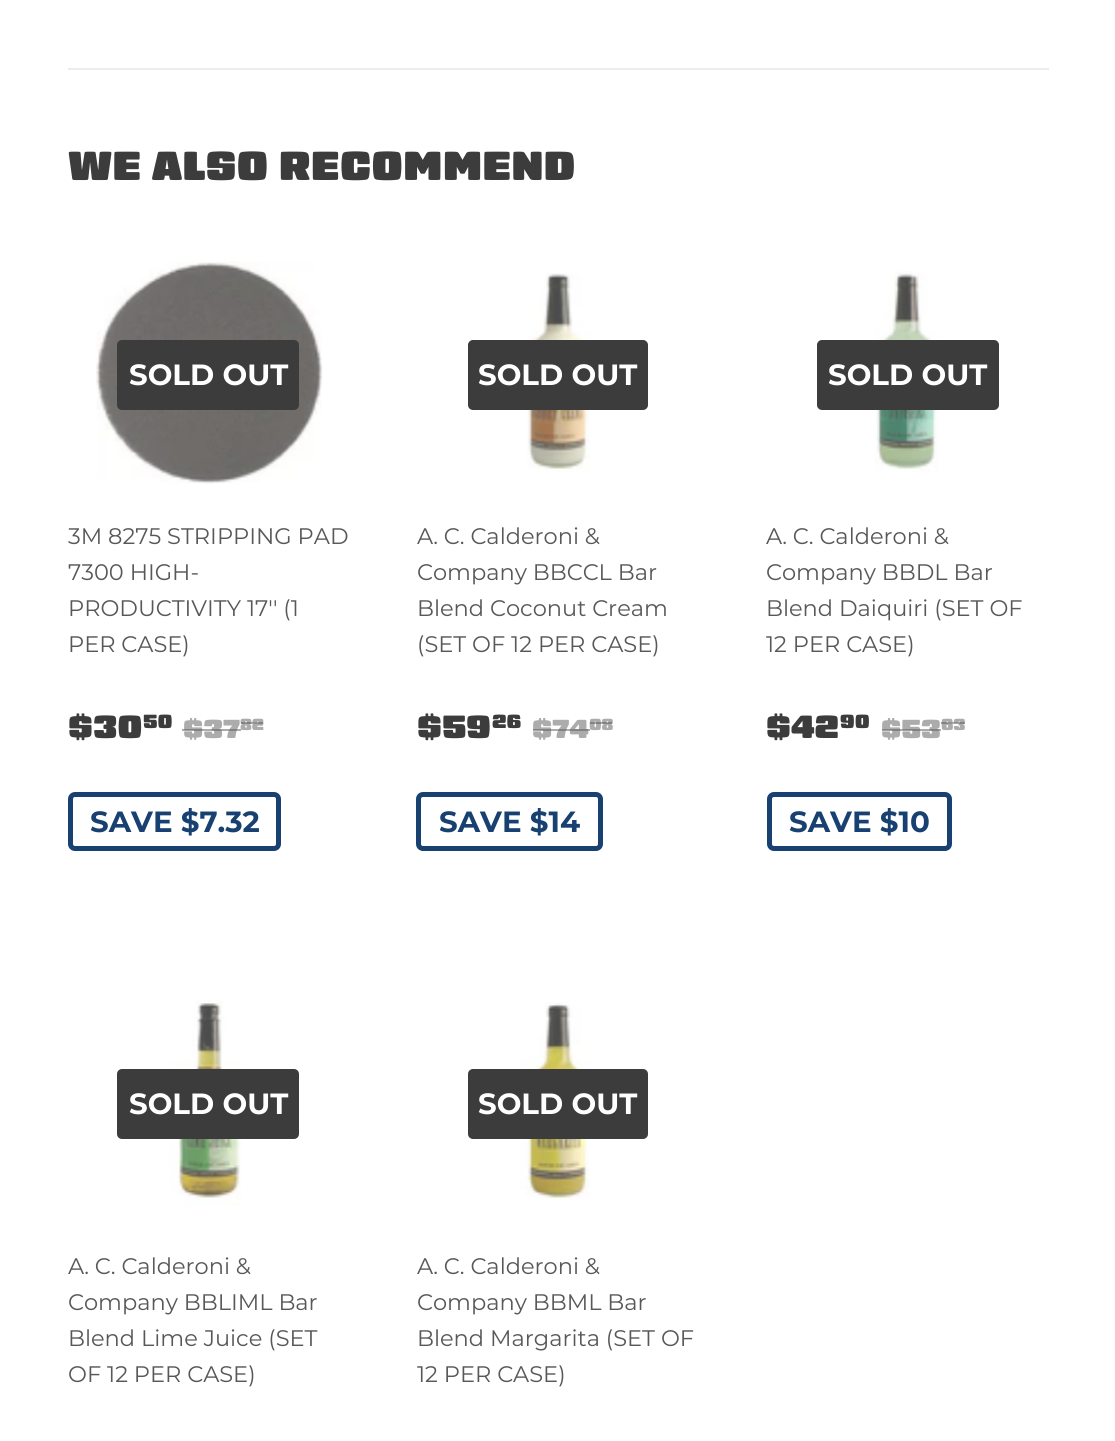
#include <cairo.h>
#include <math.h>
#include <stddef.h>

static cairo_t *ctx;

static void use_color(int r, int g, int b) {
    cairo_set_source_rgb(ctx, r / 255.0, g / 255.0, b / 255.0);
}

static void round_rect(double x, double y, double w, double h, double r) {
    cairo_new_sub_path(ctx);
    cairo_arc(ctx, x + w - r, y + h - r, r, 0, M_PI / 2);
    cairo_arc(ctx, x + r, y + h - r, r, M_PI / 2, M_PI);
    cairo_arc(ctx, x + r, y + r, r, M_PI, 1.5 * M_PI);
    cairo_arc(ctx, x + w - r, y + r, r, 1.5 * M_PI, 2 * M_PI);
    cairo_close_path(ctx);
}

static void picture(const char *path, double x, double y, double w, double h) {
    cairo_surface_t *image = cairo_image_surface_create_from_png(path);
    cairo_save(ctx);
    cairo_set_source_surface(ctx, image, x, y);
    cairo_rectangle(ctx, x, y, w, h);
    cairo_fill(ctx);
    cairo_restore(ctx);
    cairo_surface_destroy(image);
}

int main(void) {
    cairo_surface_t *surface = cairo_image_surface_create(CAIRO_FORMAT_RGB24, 1115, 1441);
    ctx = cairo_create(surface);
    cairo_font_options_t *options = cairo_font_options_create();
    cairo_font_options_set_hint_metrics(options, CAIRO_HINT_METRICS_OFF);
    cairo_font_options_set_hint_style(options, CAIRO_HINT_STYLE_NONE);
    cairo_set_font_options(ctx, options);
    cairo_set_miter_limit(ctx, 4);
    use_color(255, 255, 255);
    cairo_paint(ctx);
    use_color(236, 236, 236);
    cairo_rectangle(ctx, 68, 68, 981, 2);
    cairo_fill(ctx);
    cairo_select_font_face(ctx, "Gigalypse", CAIRO_FONT_SLANT_NORMAL, CAIRO_FONT_WEIGHT_NORMAL);
    cairo_set_font_size(ctx, 40.5);
    use_color(60, 60, 60);
    cairo_move_to(ctx, 68, 180);
    cairo_show_text(ctx, "WE ALSO RECOMMEND");
    picture("img1.png", 96, 261, 227, 223);
    round_rect(117, 340, 182, 70, 5);
    cairo_fill(ctx);
    cairo_select_font_face(ctx, "Montserrat", CAIRO_FONT_SLANT_NORMAL, CAIRO_FONT_WEIGHT_BOLD);
    cairo_set_font_size(ctx, 29.25);
    use_color(255, 255, 255);
    cairo_move_to(ctx, 129, 385);
    cairo_show_text(ctx, "SOLD OUT");
    cairo_select_font_face(ctx, "Montserrat", CAIRO_FONT_SLANT_NORMAL, CAIRO_FONT_WEIGHT_NORMAL);
    cairo_set_font_size(ctx, 22.5);
    use_color(88, 88, 88);
    cairo_move_to(ctx, 68, 544);
    cairo_show_text(ctx, "3M 8275 STRIPPING PAD");
    cairo_move_to(ctx, 68, 580);
    cairo_show_text(ctx, "7300 HIGH-");
    cairo_move_to(ctx, 68, 616);
    cairo_show_text(ctx, "PRODUCTIVITY 17'' (1");
    cairo_move_to(ctx, 68, 652);
    cairo_show_text(ctx, "PER CASE)");
    cairo_select_font_face(ctx, "Gigalypse", CAIRO_FONT_SLANT_NORMAL, CAIRO_FONT_WEIGHT_NORMAL);
    cairo_set_font_size(ctx, 32);
    use_color(60, 60, 60);
    cairo_move_to(ctx, 68, 738);
    cairo_show_text(ctx, "$30");
    cairo_set_font_size(ctx, 19);
    cairo_move_to(ctx, 143, 728);
    cairo_show_text(ctx, "50");
    cairo_set_font_size(ctx, 26);
    use_color(172, 172, 172);
    cairo_move_to(ctx, 183, 738);
    cairo_show_text(ctx, "$37");
    cairo_set_source_rgba(ctx, 0.345, 0.345, 0.345, 0.5);
    cairo_rectangle(ctx, 182, 729, 59, 2);
    cairo_fill(ctx);
    cairo_set_font_size(ctx, 16);
    use_color(172, 172, 172);
    cairo_move_to(ctx, 240, 730);
    cairo_show_text(ctx, "82");
    cairo_set_source_rgba(ctx, 0.345, 0.345, 0.345, 0.5);
    cairo_rectangle(ctx, 241, 722, 22, 2);
    cairo_fill(ctx);
    round_rect(70.5, 794.5, 208, 54, 4.5);
    use_color(24, 65, 113);
    cairo_set_line_width(ctx, 5);
    cairo_stroke(ctx);
    cairo_select_font_face(ctx, "Montserrat", CAIRO_FONT_SLANT_NORMAL, CAIRO_FONT_WEIGHT_BOLD);
    cairo_set_font_size(ctx, 29.25);
    cairo_move_to(ctx, 90, 832);
    cairo_show_text(ctx, "SAVE $7.32");
    picture("img2.png", 527, 273, 63, 199);
    use_color(60, 60, 60);
    round_rect(468, 340, 180, 70, 5);
    cairo_fill(ctx);
    use_color(255, 255, 255);
    cairo_move_to(ctx, 478, 385);
    cairo_show_text(ctx, "SOLD OUT");
    cairo_select_font_face(ctx, "Montserrat", CAIRO_FONT_SLANT_NORMAL, CAIRO_FONT_WEIGHT_NORMAL);
    cairo_set_font_size(ctx, 22.5);
    use_color(88, 88, 88);
    cairo_move_to(ctx, 417, 544);
    cairo_show_text(ctx, "A. C. Calderoni &");
    cairo_move_to(ctx, 417, 580);
    cairo_show_text(ctx, "Company BBCCL Bar");
    cairo_move_to(ctx, 417, 616);
    cairo_show_text(ctx, "Blend Coconut Cream");
    cairo_move_to(ctx, 417, 652);
    cairo_show_text(ctx, "(SET OF 12 PER CASE)");
    cairo_select_font_face(ctx, "Gigalypse", CAIRO_FONT_SLANT_NORMAL, CAIRO_FONT_WEIGHT_NORMAL);
    cairo_set_font_size(ctx, 32);
    use_color(60, 60, 60);
    cairo_move_to(ctx, 417, 738);
    cairo_show_text(ctx, "$59");
    cairo_set_font_size(ctx, 19);
    cairo_move_to(ctx, 492, 728);
    cairo_show_text(ctx, "26");
    cairo_set_font_size(ctx, 26);
    use_color(172, 172, 172);
    cairo_move_to(ctx, 532, 738);
    cairo_show_text(ctx, "$74");
    cairo_set_source_rgba(ctx, 0.345, 0.345, 0.345, 0.5);
    cairo_rectangle(ctx, 533, 729, 57, 2);
    cairo_fill(ctx);
    cairo_set_font_size(ctx, 16);
    use_color(172, 172, 172);
    cairo_move_to(ctx, 589, 730);
    cairo_show_text(ctx, "08");
    cairo_set_source_rgba(ctx, 0.345, 0.345, 0.345, 0.5);
    cairo_rectangle(ctx, 590, 722, 22, 2);
    cairo_fill(ctx);
    round_rect(418.5, 794.5, 182, 54, 4.5);
    use_color(24, 65, 113);
    cairo_stroke(ctx);
    cairo_select_font_face(ctx, "Montserrat", CAIRO_FONT_SLANT_NORMAL, CAIRO_FONT_WEIGHT_BOLD);
    cairo_set_font_size(ctx, 29.25);
    cairo_move_to(ctx, 439, 832);
    cairo_show_text(ctx, "SAVE $14");
    picture("img3.png", 875, 271, 64, 201);
    use_color(60, 60, 60);
    round_rect(817, 340, 182, 70, 5);
    cairo_fill(ctx);
    use_color(255, 255, 255);
    cairo_move_to(ctx, 828, 385);
    cairo_show_text(ctx, "SOLD OUT");
    cairo_select_font_face(ctx, "Montserrat", CAIRO_FONT_SLANT_NORMAL, CAIRO_FONT_WEIGHT_NORMAL);
    cairo_set_font_size(ctx, 22.5);
    use_color(88, 88, 88);
    cairo_move_to(ctx, 766, 544);
    cairo_show_text(ctx, "A. C. Calderoni &");
    cairo_move_to(ctx, 766, 580);
    cairo_show_text(ctx, "Company BBDL Bar");
    cairo_move_to(ctx, 766, 616);
    cairo_show_text(ctx, "Blend Daiquiri (SET OF");
    cairo_move_to(ctx, 766, 652);
    cairo_show_text(ctx, "12 PER CASE)");
    cairo_select_font_face(ctx, "Gigalypse", CAIRO_FONT_SLANT_NORMAL, CAIRO_FONT_WEIGHT_NORMAL);
    cairo_set_font_size(ctx, 32);
    use_color(60, 60, 60);
    cairo_move_to(ctx, 766, 738);
    cairo_show_text(ctx, "$42");
    cairo_set_font_size(ctx, 19);
    cairo_move_to(ctx, 840, 728);
    cairo_show_text(ctx, "90");
    cairo_set_font_size(ctx, 26);
    use_color(172, 172, 172);
    cairo_move_to(ctx, 881, 738);
    cairo_show_text(ctx, "$53");
    cairo_set_source_rgba(ctx, 0.345, 0.345, 0.345, 0.5);
    cairo_rectangle(ctx, 882, 729, 59, 2);
    cairo_fill(ctx);
    cairo_set_font_size(ctx, 16);
    use_color(172, 172, 172);
    cairo_move_to(ctx, 941, 730);
    cairo_show_text(ctx, "63");
    cairo_set_source_rgba(ctx, 0.345, 0.345, 0.345, 0.5);
    cairo_rectangle(ctx, 941, 722, 24, 2);
    cairo_fill(ctx);
    round_rect(769.5, 794.5, 180, 54, 4.5);
    use_color(24, 65, 113);
    cairo_stroke(ctx);
    cairo_select_font_face(ctx, "Montserrat", CAIRO_FONT_SLANT_NORMAL, CAIRO_FONT_WEIGHT_BOLD);
    cairo_set_font_size(ctx, 29.25);
    cairo_move_to(ctx, 789, 832);
    cairo_show_text(ctx, "SAVE $10");
    picture("img4.png", 169, 1000, 73, 206);
    use_color(60, 60, 60);
    round_rect(117, 1069, 182, 70, 5);
    cairo_fill(ctx);
    use_color(255, 255, 255);
    cairo_move_to(ctx, 129, 1114);
    cairo_show_text(ctx, "SOLD OUT");
    cairo_select_font_face(ctx, "Montserrat", CAIRO_FONT_SLANT_NORMAL, CAIRO_FONT_WEIGHT_NORMAL);
    cairo_set_font_size(ctx, 22.5);
    use_color(88, 88, 88);
    cairo_move_to(ctx, 68, 1274);
    cairo_show_text(ctx, "A. C. Calderoni &");
    cairo_move_to(ctx, 68, 1310);
    cairo_show_text(ctx, "Company BBLIML Bar");
    cairo_move_to(ctx, 68, 1346);
    cairo_show_text(ctx, "Blend Lime Juice (SET");
    cairo_move_to(ctx, 68, 1382);
    cairo_show_text(ctx, "OF 12 PER CASE)");
    picture("img5.png", 520, 1002, 70, 198);
    use_color(60, 60, 60);
    round_rect(468, 1069, 180, 70, 5);
    cairo_fill(ctx);
    cairo_select_font_face(ctx, "Montserrat", CAIRO_FONT_SLANT_NORMAL, CAIRO_FONT_WEIGHT_BOLD);
    cairo_set_font_size(ctx, 29.25);
    use_color(255, 255, 255);
    cairo_move_to(ctx, 478, 1114);
    cairo_show_text(ctx, "SOLD OUT");
    cairo_select_font_face(ctx, "Montserrat", CAIRO_FONT_SLANT_NORMAL, CAIRO_FONT_WEIGHT_NORMAL);
    cairo_set_font_size(ctx, 22.5);
    use_color(88, 88, 88);
    cairo_move_to(ctx, 417, 1274);
    cairo_show_text(ctx, "A. C. Calderoni &");
    cairo_move_to(ctx, 417, 1310);
    cairo_show_text(ctx, "Company BBML Bar");
    cairo_move_to(ctx, 417, 1346);
    cairo_show_text(ctx, "Blend Margarita (SET OF");
    cairo_move_to(ctx, 417, 1382);
    cairo_show_text(ctx, "12 PER CASE)");
    cairo_surface_write_to_png(surface, "result.png");
    cairo_font_options_destroy(options);
    cairo_destroy(ctx);
    cairo_surface_destroy(surface);
    return 0;
}
